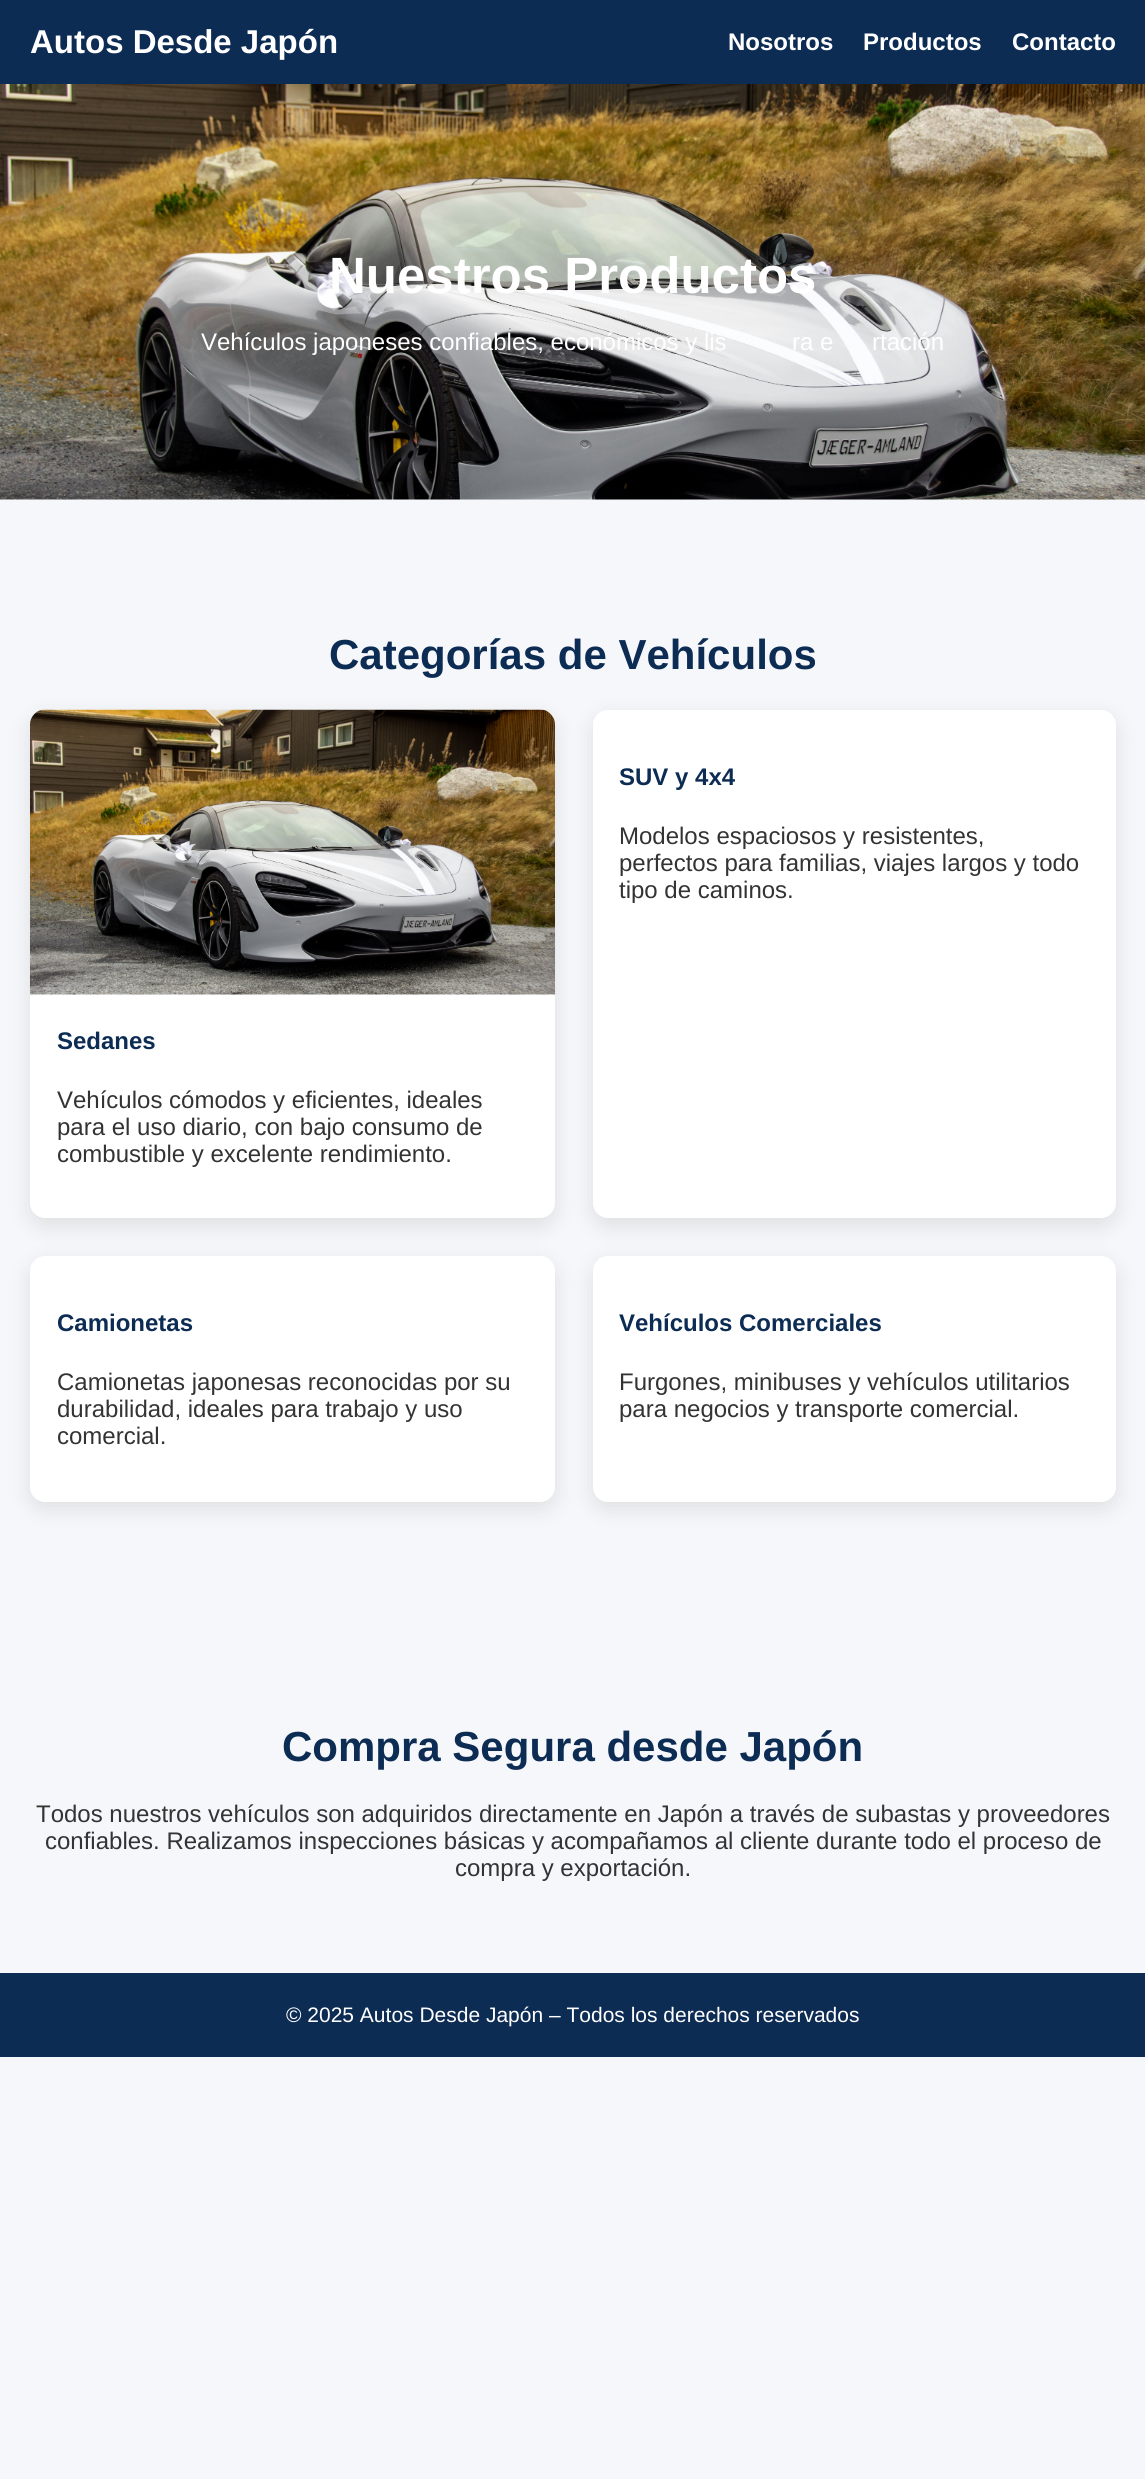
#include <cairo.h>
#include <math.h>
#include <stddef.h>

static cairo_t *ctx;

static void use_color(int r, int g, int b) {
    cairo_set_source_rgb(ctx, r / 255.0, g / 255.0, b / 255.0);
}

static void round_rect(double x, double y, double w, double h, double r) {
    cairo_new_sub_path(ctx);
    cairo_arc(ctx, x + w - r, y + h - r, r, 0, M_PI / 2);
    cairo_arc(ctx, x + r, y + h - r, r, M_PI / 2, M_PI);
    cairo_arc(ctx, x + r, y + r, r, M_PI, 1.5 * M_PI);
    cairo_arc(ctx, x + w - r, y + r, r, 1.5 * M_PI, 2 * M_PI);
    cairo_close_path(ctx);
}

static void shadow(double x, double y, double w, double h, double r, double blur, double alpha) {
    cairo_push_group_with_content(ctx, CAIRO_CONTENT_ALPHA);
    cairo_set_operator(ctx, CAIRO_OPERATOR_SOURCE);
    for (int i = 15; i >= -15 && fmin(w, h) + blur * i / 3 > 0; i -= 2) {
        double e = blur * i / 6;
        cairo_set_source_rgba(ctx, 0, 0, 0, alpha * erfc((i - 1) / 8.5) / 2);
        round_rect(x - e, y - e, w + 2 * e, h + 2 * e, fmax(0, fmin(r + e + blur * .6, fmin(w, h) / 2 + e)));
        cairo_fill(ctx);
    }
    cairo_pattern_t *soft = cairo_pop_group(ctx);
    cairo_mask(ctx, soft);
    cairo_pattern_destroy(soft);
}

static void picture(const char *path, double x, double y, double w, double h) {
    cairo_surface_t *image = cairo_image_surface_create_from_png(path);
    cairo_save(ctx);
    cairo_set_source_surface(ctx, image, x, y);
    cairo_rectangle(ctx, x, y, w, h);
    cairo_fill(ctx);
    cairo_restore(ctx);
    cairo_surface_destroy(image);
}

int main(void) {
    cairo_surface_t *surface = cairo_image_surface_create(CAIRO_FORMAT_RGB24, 1145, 2479);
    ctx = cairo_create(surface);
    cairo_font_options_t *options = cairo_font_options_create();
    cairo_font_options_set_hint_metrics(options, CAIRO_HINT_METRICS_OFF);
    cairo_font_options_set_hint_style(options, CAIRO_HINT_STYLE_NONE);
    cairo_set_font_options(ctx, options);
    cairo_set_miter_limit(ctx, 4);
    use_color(245, 247, 250);
    cairo_paint(ctx);
    use_color(13, 44, 84);
    cairo_rectangle(ctx, 0, 0, 1145, 84);
    cairo_fill(ctx);
    cairo_select_font_face(ctx, "Liberation Sans", CAIRO_FONT_SLANT_NORMAL, CAIRO_FONT_WEIGHT_BOLD);
    cairo_set_font_size(ctx, 33);
    use_color(255, 255, 255);
    cairo_move_to(ctx, 30, 53);
    cairo_show_text(ctx, "Autos Desde Japón");
    cairo_set_font_size(ctx, 24);
    cairo_move_to(ctx, 728, 50);
    cairo_show_text(ctx, "Nosotros");
    cairo_move_to(ctx, 863, 50);
    cairo_show_text(ctx, "Productos");
    cairo_move_to(ctx, 1012, 50);
    cairo_show_text(ctx, "Contacto");
    picture("img1.png", 0, 84, 1145, 416);
    cairo_set_font_size(ctx, 51);
    cairo_move_to(ctx, 329, 293);
    cairo_show_text(ctx, "Nuestros Productos");
    cairo_select_font_face(ctx, "Liberation Sans", CAIRO_FONT_SLANT_NORMAL, CAIRO_FONT_WEIGHT_NORMAL);
    cairo_set_font_size(ctx, 24);
    cairo_move_to(ctx, 201, 350);
    cairo_show_text(ctx, "Vehículos japoneses confiables, económicos y lis");
    cairo_move_to(ctx, 792, 350);
    cairo_show_text(ctx, "ra e");
    cairo_move_to(ctx, 872, 350);
    cairo_show_text(ctx, "rtación");
    cairo_select_font_face(ctx, "Liberation Sans", CAIRO_FONT_SLANT_NORMAL, CAIRO_FONT_WEIGHT_BOLD);
    cairo_set_font_size(ctx, 42);
    use_color(13, 44, 84);
    cairo_move_to(ctx, 329, 669);
    cairo_show_text(ctx, "Categorías de Vehículos");
    use_color(0, 0, 0);
    shadow(593, 717, 523, 509, 15, 11, 0.1);
    use_color(255, 255, 255);
    round_rect(593, 710, 523, 508, 15);
    cairo_fill(ctx);
    cairo_set_font_size(ctx, 24);
    use_color(13, 44, 84);
    cairo_move_to(ctx, 619, 785);
    cairo_show_text(ctx, "SUV y 4x4");
    cairo_select_font_face(ctx, "Liberation Sans", CAIRO_FONT_SLANT_NORMAL, CAIRO_FONT_WEIGHT_NORMAL);
    use_color(51, 51, 51);
    cairo_move_to(ctx, 619, 844);
    cairo_show_text(ctx, "Modelos espaciosos y resistentes,");
    cairo_move_to(ctx, 619, 871);
    cairo_show_text(ctx, "perfectos para familias, viajes largos y todo");
    cairo_move_to(ctx, 619, 898);
    cairo_show_text(ctx, "tipo de caminos.");
    use_color(0, 0, 0);
    shadow(30, 717, 525, 509, 15, 11, 0.1);
    use_color(255, 255, 255);
    round_rect(30, 710, 525, 508, 15);
    cairo_fill(ctx);
    picture("img2.png", 30, 709, 525, 286);
    cairo_select_font_face(ctx, "Liberation Sans", CAIRO_FONT_SLANT_NORMAL, CAIRO_FONT_WEIGHT_BOLD);
    use_color(13, 44, 84);
    cairo_move_to(ctx, 57, 1049);
    cairo_show_text(ctx, "Sedanes");
    cairo_select_font_face(ctx, "Liberation Sans", CAIRO_FONT_SLANT_NORMAL, CAIRO_FONT_WEIGHT_NORMAL);
    use_color(51, 51, 51);
    cairo_move_to(ctx, 57, 1108);
    cairo_show_text(ctx, "Vehículos cómodos y eficientes, ideales");
    cairo_move_to(ctx, 57, 1135);
    cairo_show_text(ctx, "para el uso diario, con bajo consumo de");
    cairo_move_to(ctx, 57, 1162);
    cairo_show_text(ctx, "combustible y excelente rendimiento.");
    use_color(0, 0, 0);
    shadow(30, 1263, 525, 246, 15, 11, 0.1);
    use_color(255, 255, 255);
    round_rect(30, 1256, 525, 246, 15);
    cairo_fill(ctx);
    cairo_select_font_face(ctx, "Liberation Sans", CAIRO_FONT_SLANT_NORMAL, CAIRO_FONT_WEIGHT_BOLD);
    use_color(13, 44, 84);
    cairo_move_to(ctx, 57, 1331);
    cairo_show_text(ctx, "Camionetas");
    cairo_select_font_face(ctx, "Liberation Sans", CAIRO_FONT_SLANT_NORMAL, CAIRO_FONT_WEIGHT_NORMAL);
    use_color(51, 51, 51);
    cairo_move_to(ctx, 57, 1390);
    cairo_show_text(ctx, "Camionetas japonesas reconocidas por su");
    cairo_move_to(ctx, 57, 1417);
    cairo_show_text(ctx, "durabilidad, ideales para trabajo y uso");
    cairo_move_to(ctx, 57, 1444);
    cairo_show_text(ctx, "comercial.");
    use_color(0, 0, 0);
    shadow(593, 1263, 523, 246, 15, 11, 0.1);
    use_color(255, 255, 255);
    round_rect(593, 1256, 523, 246, 15);
    cairo_fill(ctx);
    cairo_select_font_face(ctx, "Liberation Sans", CAIRO_FONT_SLANT_NORMAL, CAIRO_FONT_WEIGHT_BOLD);
    use_color(13, 44, 84);
    cairo_move_to(ctx, 619, 1331);
    cairo_show_text(ctx, "Vehículos Comerciales");
    cairo_select_font_face(ctx, "Liberation Sans", CAIRO_FONT_SLANT_NORMAL, CAIRO_FONT_WEIGHT_NORMAL);
    use_color(51, 51, 51);
    cairo_move_to(ctx, 619, 1390);
    cairo_show_text(ctx, "Furgones, minibuses y vehículos utilitarios");
    cairo_move_to(ctx, 619, 1417);
    cairo_show_text(ctx, "para negocios y transporte comercial.");
    cairo_select_font_face(ctx, "Liberation Sans", CAIRO_FONT_SLANT_NORMAL, CAIRO_FONT_WEIGHT_BOLD);
    cairo_set_font_size(ctx, 42);
    use_color(13, 44, 84);
    cairo_move_to(ctx, 282, 1761);
    cairo_show_text(ctx, "Compra Segura desde Japón");
    cairo_select_font_face(ctx, "Liberation Sans", CAIRO_FONT_SLANT_NORMAL, CAIRO_FONT_WEIGHT_NORMAL);
    cairo_set_font_size(ctx, 24);
    use_color(51, 51, 51);
    cairo_move_to(ctx, 36, 1822);
    cairo_show_text(ctx, "Todos nuestros vehículos son adquiridos directamente en Japón a través de subastas y proveedores");
    cairo_move_to(ctx, 45, 1849);
    cairo_show_text(ctx, "confiables. Realizamos inspecciones básicas y acompañamos al cliente durante todo el proceso de");
    cairo_move_to(ctx, 455, 1876);
    cairo_show_text(ctx, "compra y exportación.");
    use_color(13, 44, 84);
    cairo_rectangle(ctx, 0, 1973, 1145, 84);
    cairo_fill(ctx);
    cairo_set_font_size(ctx, 21);
    use_color(255, 255, 255);
    cairo_move_to(ctx, 286, 2022);
    cairo_show_text(ctx, "© 2025 Autos Desde Japón – Todos los derechos reservados");
    cairo_surface_write_to_png(surface, "result.png");
    cairo_font_options_destroy(options);
    cairo_destroy(ctx);
    cairo_surface_destroy(surface);
    return 0;
}
